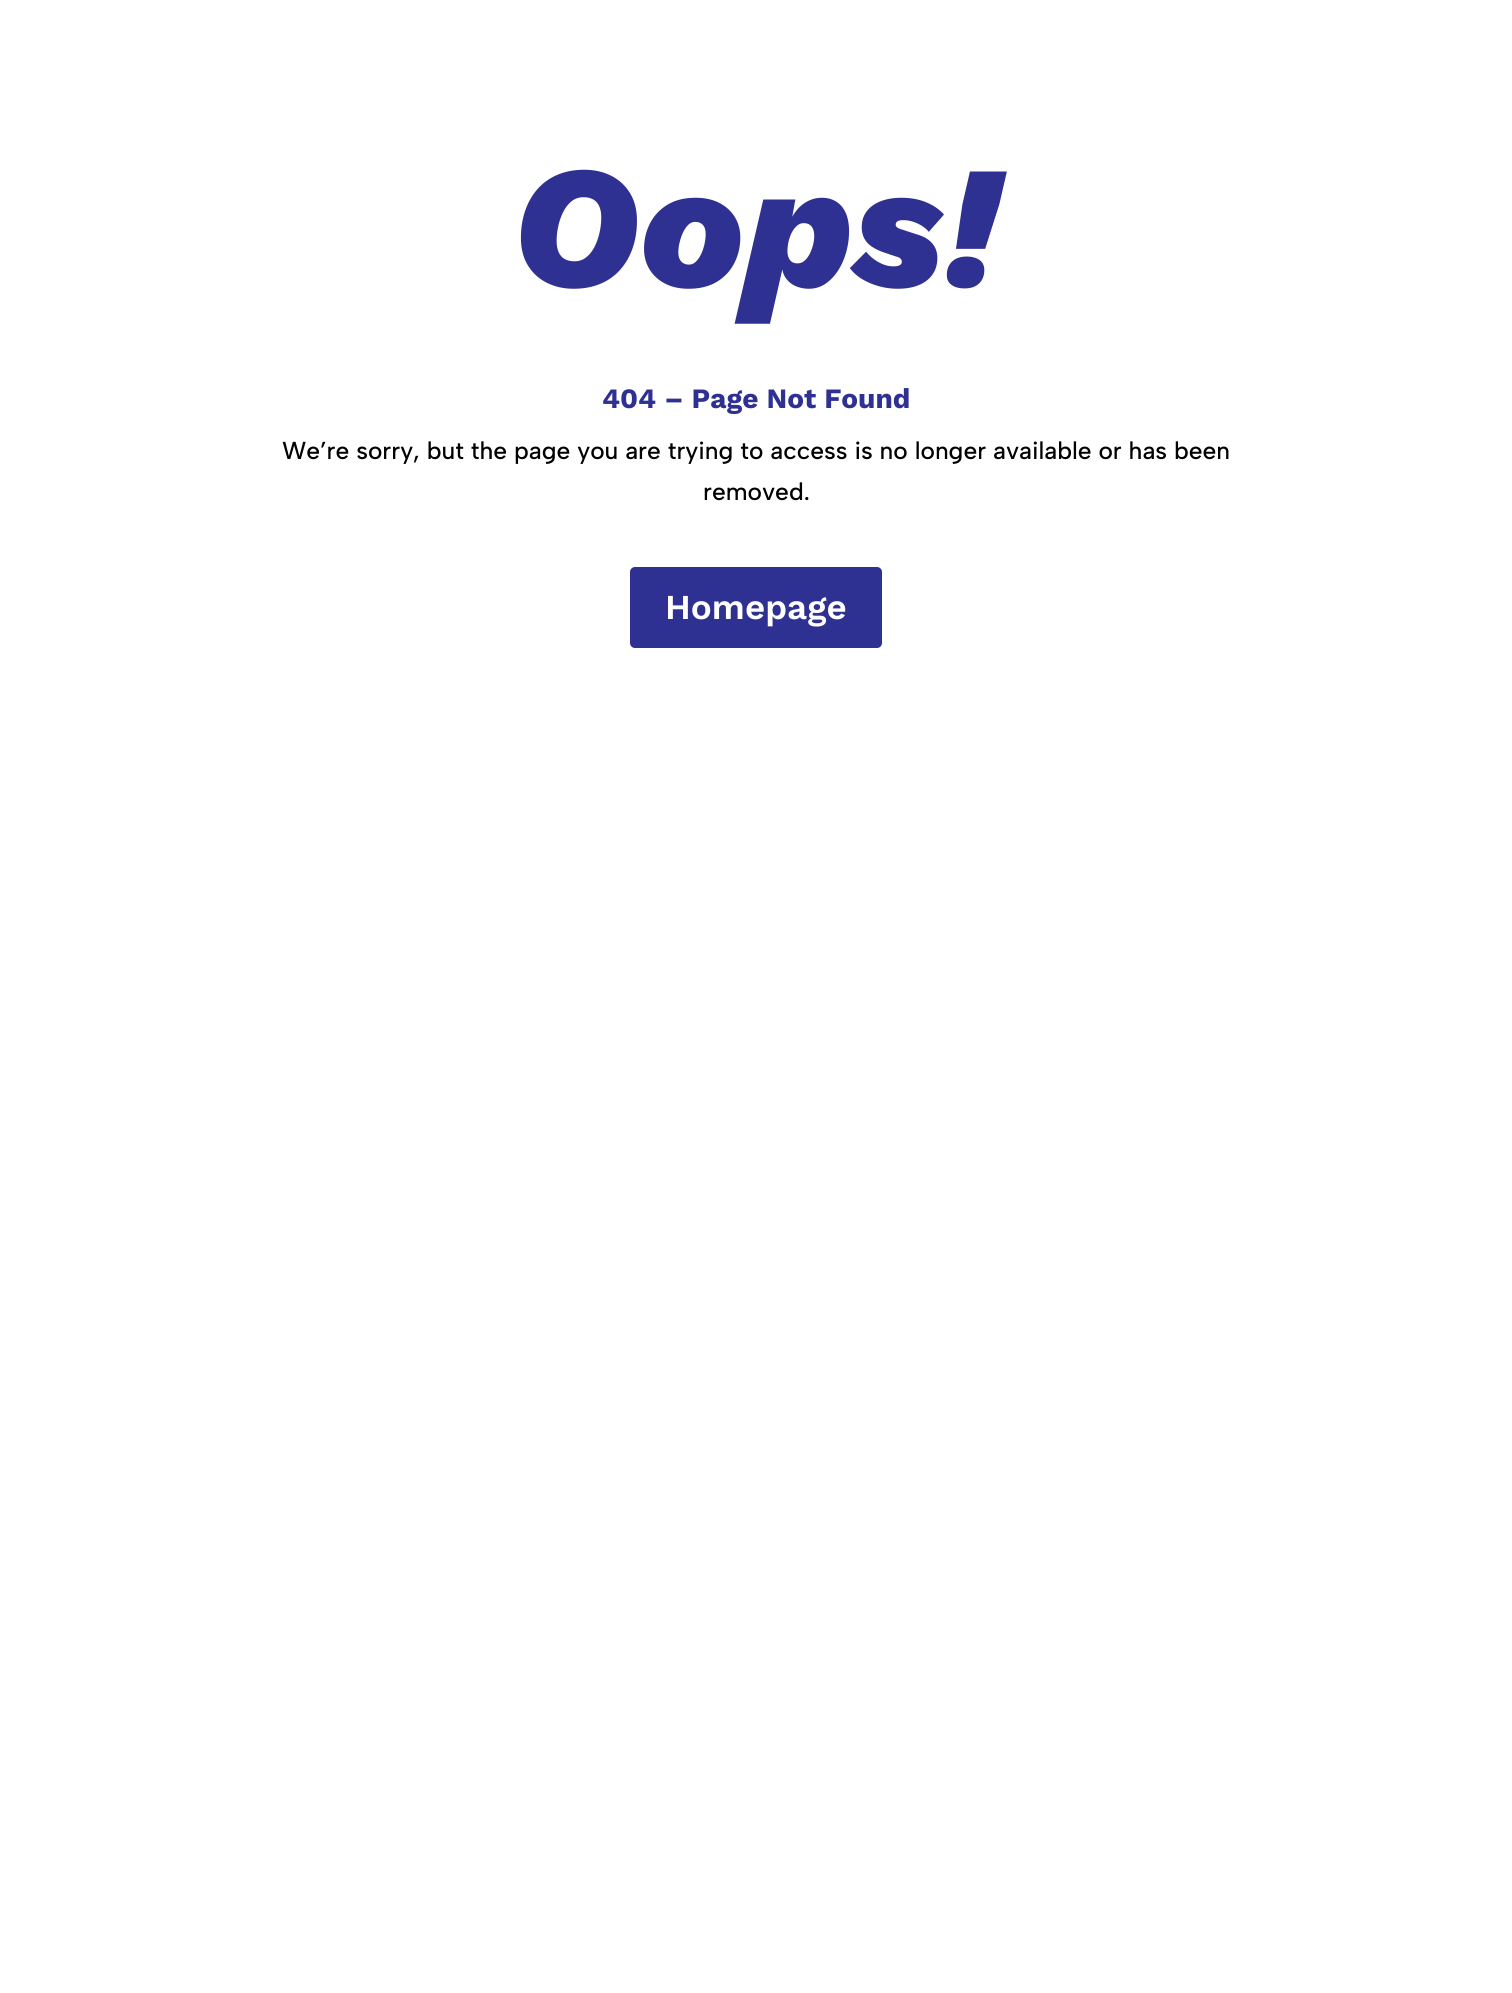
#include <cairo.h>
#include <math.h>
#include <stddef.h>

static cairo_t *ctx;

static void use_color(int r, int g, int b) {
    cairo_set_source_rgb(ctx, r / 255.0, g / 255.0, b / 255.0);
}

static void round_rect(double x, double y, double w, double h, double r) {
    cairo_new_sub_path(ctx);
    cairo_arc(ctx, x + w - r, y + h - r, r, 0, M_PI / 2);
    cairo_arc(ctx, x + r, y + h - r, r, M_PI / 2, M_PI);
    cairo_arc(ctx, x + r, y + r, r, M_PI, 1.5 * M_PI);
    cairo_arc(ctx, x + w - r, y + r, r, 1.5 * M_PI, 2 * M_PI);
    cairo_close_path(ctx);
}

int main(void) {
    cairo_surface_t *surface = cairo_image_surface_create(CAIRO_FORMAT_RGB24, 1512, 1993);
    ctx = cairo_create(surface);
    cairo_font_options_t *options = cairo_font_options_create();
    cairo_font_options_set_hint_metrics(options, CAIRO_HINT_METRICS_OFF);
    cairo_font_options_set_hint_style(options, CAIRO_HINT_STYLE_NONE);
    cairo_set_font_options(ctx, options);
    cairo_set_miter_limit(ctx, 4);
    use_color(255, 255, 255);
    cairo_paint(ctx);
    cairo_select_font_face(ctx, "Work Sans ExtraBold", CAIRO_FONT_SLANT_ITALIC, CAIRO_FONT_WEIGHT_NORMAL);
    cairo_set_font_size(ctx, 175);
    use_color(46, 49, 146);
    cairo_move_to(ctx, 512, 287);
    cairo_show_text(ctx, "Oops!");
    cairo_select_font_face(ctx, "Work Sans", CAIRO_FONT_SLANT_NORMAL, CAIRO_FONT_WEIGHT_BOLD);
    cairo_set_font_size(ctx, 28);
    cairo_move_to(ctx, 602, 408);
    cairo_show_text(ctx, "404 – Page Not Found");
    cairo_select_font_face(ctx, "Albert Sans Medium", CAIRO_FONT_SLANT_NORMAL, CAIRO_FONT_WEIGHT_NORMAL);
    cairo_set_font_size(ctx, 24.5);
    use_color(0, 0, 0);
    cairo_move_to(ctx, 282, 459);
    cairo_show_text(ctx, "We’re sorry, but the page you are trying to access is no longer available or has been");
    cairo_move_to(ctx, 703, 500);
    cairo_show_text(ctx, "removed.");
    use_color(46, 49, 146);
    round_rect(630, 567, 252, 81, 5);
    cairo_fill(ctx);
    cairo_select_font_face(ctx, "Work Sans SemiBold", CAIRO_FONT_SLANT_NORMAL, CAIRO_FONT_WEIGHT_NORMAL);
    cairo_set_font_size(ctx, 35);
    use_color(255, 255, 255);
    cairo_move_to(ctx, 665, 619);
    cairo_show_text(ctx, "Homepage");
    cairo_surface_write_to_png(surface, "result.png");
    cairo_font_options_destroy(options);
    cairo_destroy(ctx);
    cairo_surface_destroy(surface);
    return 0;
}
